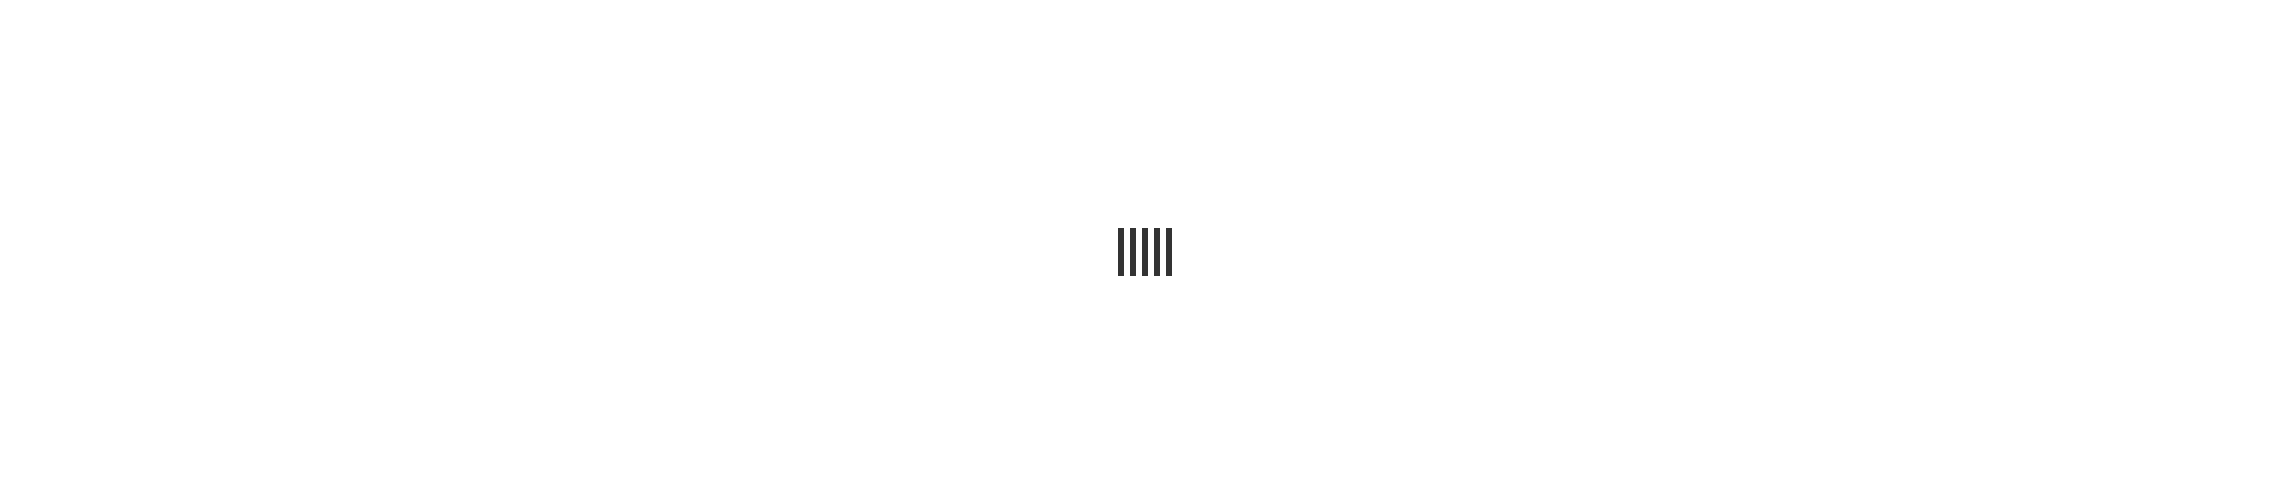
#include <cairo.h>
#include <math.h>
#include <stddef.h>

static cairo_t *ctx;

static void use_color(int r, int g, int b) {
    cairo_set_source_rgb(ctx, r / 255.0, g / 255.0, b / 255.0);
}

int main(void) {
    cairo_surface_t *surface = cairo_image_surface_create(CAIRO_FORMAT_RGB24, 2287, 503);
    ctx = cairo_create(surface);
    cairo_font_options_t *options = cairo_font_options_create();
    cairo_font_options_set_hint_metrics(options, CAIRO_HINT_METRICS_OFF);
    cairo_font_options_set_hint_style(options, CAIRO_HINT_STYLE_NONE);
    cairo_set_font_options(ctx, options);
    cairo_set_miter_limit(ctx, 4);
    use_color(255, 255, 255);
    cairo_paint(ctx);
    use_color(51, 51, 51);
    cairo_rectangle(ctx, 1118, 228, 6, 48);
    cairo_fill(ctx);
    cairo_rectangle(ctx, 1130, 228, 6, 48);
    cairo_fill(ctx);
    cairo_rectangle(ctx, 1142, 228, 6, 48);
    cairo_fill(ctx);
    cairo_rectangle(ctx, 1154, 228, 6, 48);
    cairo_fill(ctx);
    cairo_rectangle(ctx, 1166, 228, 6, 48);
    cairo_fill(ctx);
    cairo_surface_write_to_png(surface, "result.png");
    cairo_font_options_destroy(options);
    cairo_destroy(ctx);
    cairo_surface_destroy(surface);
    return 0;
}
